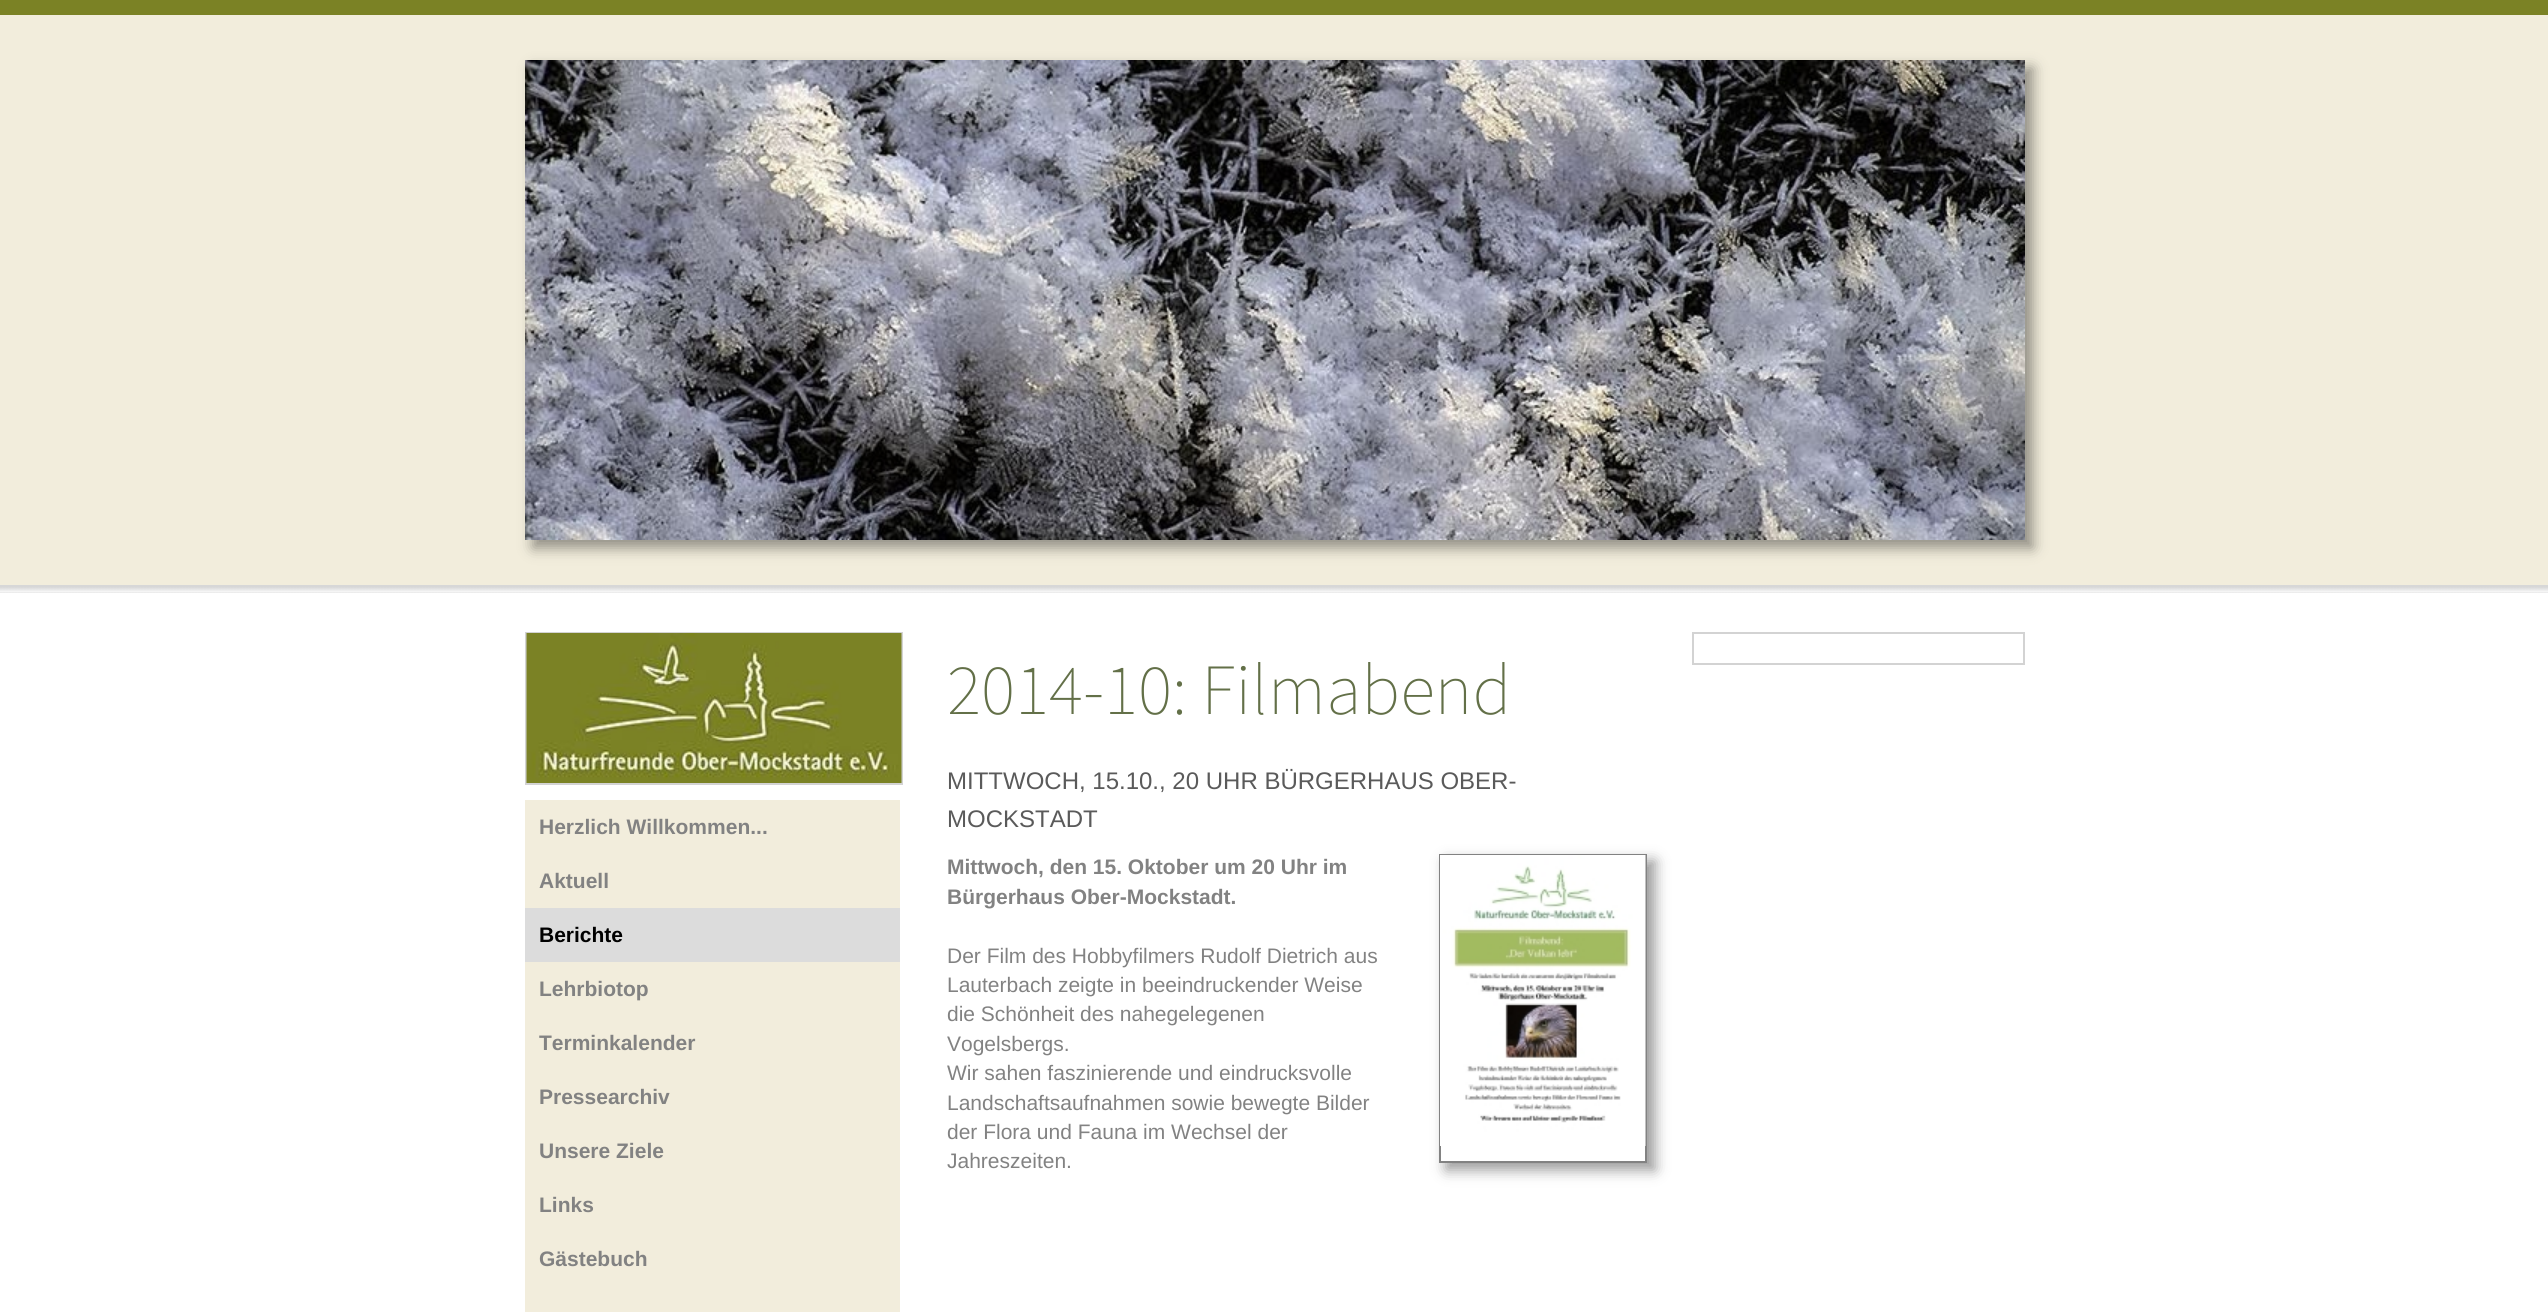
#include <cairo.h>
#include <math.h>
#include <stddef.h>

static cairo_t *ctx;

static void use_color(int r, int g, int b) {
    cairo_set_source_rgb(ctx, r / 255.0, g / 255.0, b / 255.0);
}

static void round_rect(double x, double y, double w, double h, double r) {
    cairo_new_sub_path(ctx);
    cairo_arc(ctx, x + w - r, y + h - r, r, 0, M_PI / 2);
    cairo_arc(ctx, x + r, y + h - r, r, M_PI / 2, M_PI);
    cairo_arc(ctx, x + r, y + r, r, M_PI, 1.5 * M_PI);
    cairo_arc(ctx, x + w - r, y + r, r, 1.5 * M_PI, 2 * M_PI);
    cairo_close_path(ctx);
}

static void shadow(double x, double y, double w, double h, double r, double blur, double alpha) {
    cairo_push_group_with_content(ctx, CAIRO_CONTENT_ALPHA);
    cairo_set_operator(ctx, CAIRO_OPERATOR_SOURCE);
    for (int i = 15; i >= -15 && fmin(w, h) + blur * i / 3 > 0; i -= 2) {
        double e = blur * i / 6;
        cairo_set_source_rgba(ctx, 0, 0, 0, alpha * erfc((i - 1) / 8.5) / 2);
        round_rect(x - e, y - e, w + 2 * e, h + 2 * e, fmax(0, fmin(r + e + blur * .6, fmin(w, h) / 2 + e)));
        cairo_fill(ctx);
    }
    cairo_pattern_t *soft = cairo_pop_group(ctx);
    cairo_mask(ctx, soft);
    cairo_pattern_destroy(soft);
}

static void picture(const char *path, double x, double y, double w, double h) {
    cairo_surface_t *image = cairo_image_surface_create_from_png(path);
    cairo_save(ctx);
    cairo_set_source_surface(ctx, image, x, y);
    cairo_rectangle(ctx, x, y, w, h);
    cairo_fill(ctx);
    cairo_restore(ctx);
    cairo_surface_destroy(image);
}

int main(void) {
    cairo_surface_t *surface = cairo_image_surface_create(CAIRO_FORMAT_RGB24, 2548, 1312);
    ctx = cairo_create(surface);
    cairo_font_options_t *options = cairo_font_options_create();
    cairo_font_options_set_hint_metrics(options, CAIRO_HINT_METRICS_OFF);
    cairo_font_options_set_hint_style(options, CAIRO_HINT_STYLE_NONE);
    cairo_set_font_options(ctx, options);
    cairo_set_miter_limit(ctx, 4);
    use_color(123, 130, 37);
    cairo_paint(ctx);
    use_color(242, 237, 220);
    cairo_rectangle(ctx, 0, 15, 2548, 570);
    cairo_fill(ctx);
    use_color(0, 0, 0);
    shadow(533, 68, 1500, 480, 0, 7, 0.4);
    picture("img1.png", 525, 60, 1500, 480);
    use_color(255, 255, 255);
    cairo_rectangle(ctx, 0, 592, 2548, 720);
    cairo_fill(ctx);
    picture("img2.png", 0, 587, 2548, 6);
    use_color(215, 215, 215);
    cairo_rectangle(ctx, 0, 585, 2548, 2);
    cairo_fill(ctx);
    cairo_rectangle(ctx, 1693, 633, 331, 31);
    use_color(211, 211, 211);
    cairo_stroke(ctx);
    cairo_rectangle(ctx, 526, 633, 376, 151);
    cairo_stroke(ctx);
    picture("img3.png", 526, 633, 376, 150);
    use_color(242, 237, 220);
    cairo_rectangle(ctx, 525, 800, 375, 512);
    cairo_fill(ctx);
    cairo_select_font_face(ctx, "Liberation Sans", CAIRO_FONT_SLANT_NORMAL, CAIRO_FONT_WEIGHT_BOLD);
    cairo_set_font_size(ctx, 21);
    use_color(130, 130, 130);
    cairo_move_to(ctx, 539, 834);
    cairo_show_text(ctx, "Herzlich Willkommen...");
    cairo_move_to(ctx, 539, 888);
    cairo_show_text(ctx, "Aktuell");
    use_color(220, 220, 220);
    cairo_rectangle(ctx, 525, 908, 375, 54);
    cairo_fill(ctx);
    use_color(0, 0, 0);
    cairo_move_to(ctx, 539, 942);
    cairo_show_text(ctx, "Berichte");
    use_color(130, 130, 130);
    cairo_move_to(ctx, 539, 996);
    cairo_show_text(ctx, "Lehrbiotop");
    cairo_move_to(ctx, 539, 1050);
    cairo_show_text(ctx, "Terminkalender");
    cairo_move_to(ctx, 539, 1104);
    cairo_show_text(ctx, "Pressearchiv");
    cairo_move_to(ctx, 539, 1158);
    cairo_show_text(ctx, "Unsere Ziele");
    cairo_move_to(ctx, 539, 1212);
    cairo_show_text(ctx, "Links");
    cairo_move_to(ctx, 539, 1266);
    cairo_show_text(ctx, "Gästebuch");
    cairo_select_font_face(ctx, "Source Sans Pro ExtraLight", CAIRO_FONT_SLANT_NORMAL, CAIRO_FONT_WEIGHT_NORMAL);
    cairo_set_font_size(ctx, 72);
    use_color(99, 112, 72);
    cairo_move_to(ctx, 947, 714);
    cairo_show_text(ctx, "2014-10: Filmabend");
    cairo_select_font_face(ctx, "Liberation Sans", CAIRO_FONT_SLANT_NORMAL, CAIRO_FONT_WEIGHT_NORMAL);
    cairo_set_font_size(ctx, 24);
    use_color(90, 90, 90);
    cairo_move_to(ctx, 947, 789);
    cairo_show_text(ctx, "MITTWOCH, 15.10., 20 UHR BÜRGERHAUS OBER-");
    cairo_move_to(ctx, 947, 827);
    cairo_show_text(ctx, "MOCKSTADT");
    cairo_select_font_face(ctx, "Liberation Sans", CAIRO_FONT_SLANT_NORMAL, CAIRO_FONT_WEIGHT_BOLD);
    cairo_set_font_size(ctx, 21);
    use_color(130, 130, 130);
    cairo_move_to(ctx, 947, 874);
    cairo_show_text(ctx, "Mittwoch, den 15. Oktober um 20 Uhr im");
    cairo_move_to(ctx, 947, 904);
    cairo_show_text(ctx, "Bürgerhaus Ober-Mockstadt.");
    cairo_select_font_face(ctx, "Liberation Sans", CAIRO_FONT_SLANT_NORMAL, CAIRO_FONT_WEIGHT_NORMAL);
    cairo_move_to(ctx, 947, 963);
    cairo_show_text(ctx, "Der Film des Hobbyfilmers Rudolf Dietrich aus");
    cairo_move_to(ctx, 947, 992);
    cairo_show_text(ctx, "Lauterbach zeigte in beeindruckender Weise");
    cairo_move_to(ctx, 947, 1021);
    cairo_show_text(ctx, "die Schönheit des nahegelegenen");
    cairo_move_to(ctx, 947, 1051);
    cairo_show_text(ctx, "Vogelsbergs.");
    cairo_move_to(ctx, 947, 1080);
    cairo_show_text(ctx, "Wir sahen faszinierende und eindrucksvolle");
    cairo_move_to(ctx, 947, 1110);
    cairo_show_text(ctx, "Landschaftsaufnahmen sowie bewegte Bilder");
    cairo_move_to(ctx, 947, 1139);
    cairo_show_text(ctx, "der Flora und Fauna im Wechsel der");
    cairo_move_to(ctx, 947, 1168);
    cairo_show_text(ctx, "Jahreszeiten.");
    use_color(0, 0, 0);
    shadow(1446, 861, 209, 309, 0, 7, 0.4);
    use_color(255, 255, 255);
    cairo_rectangle(ctx, 1441, 1146, 204, 15);
    cairo_fill(ctx);
    cairo_rectangle(ctx, 1440, 855, 206, 307);
    use_color(130, 130, 130);
    cairo_stroke(ctx);
    picture("img4.png", 1440, 855, 206, 291);
    cairo_surface_write_to_png(surface, "result.png");
    cairo_font_options_destroy(options);
    cairo_destroy(ctx);
    cairo_surface_destroy(surface);
    return 0;
}
